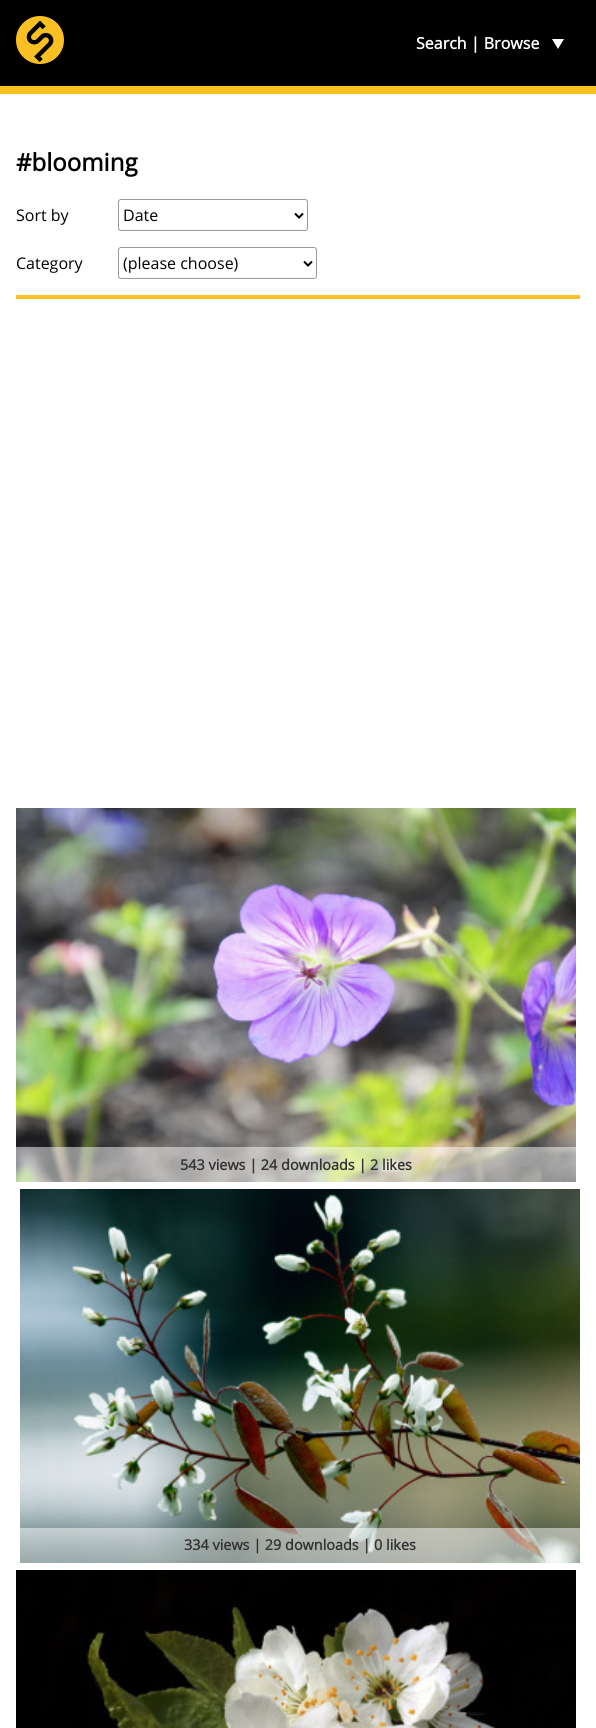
#include <cairo.h>
#include <math.h>
#include <stddef.h>

static cairo_t *ctx;

static void use_color(int r, int g, int b) {
    cairo_set_source_rgb(ctx, r / 255.0, g / 255.0, b / 255.0);
}

static void round_rect(double x, double y, double w, double h, double r) {
    cairo_new_sub_path(ctx);
    cairo_arc(ctx, x + w - r, y + h - r, r, 0, M_PI / 2);
    cairo_arc(ctx, x + r, y + h - r, r, M_PI / 2, M_PI);
    cairo_arc(ctx, x + r, y + r, r, M_PI, 1.5 * M_PI);
    cairo_arc(ctx, x + w - r, y + r, r, 1.5 * M_PI, 2 * M_PI);
    cairo_close_path(ctx);
}

static void picture(const char *path, double x, double y, double w, double h) {
    cairo_surface_t *image = cairo_image_surface_create_from_png(path);
    cairo_save(ctx);
    cairo_set_source_surface(ctx, image, x, y);
    cairo_rectangle(ctx, x, y, w, h);
    cairo_fill(ctx);
    cairo_restore(ctx);
    cairo_surface_destroy(image);
}

int main(void) {
    cairo_surface_t *surface = cairo_image_surface_create(CAIRO_FORMAT_RGB24, 596, 1728);
    ctx = cairo_create(surface);
    cairo_font_options_t *options = cairo_font_options_create();
    cairo_font_options_set_hint_metrics(options, CAIRO_HINT_METRICS_OFF);
    cairo_font_options_set_hint_style(options, CAIRO_HINT_STYLE_NONE);
    cairo_set_font_options(ctx, options);
    cairo_set_miter_limit(ctx, 4);
    use_color(255, 255, 255);
    cairo_paint(ctx);
    use_color(0, 0, 0);
    cairo_rectangle(ctx, 0, 0, 596, 86);
    cairo_fill(ctx);
    use_color(252, 192, 33);
    cairo_rectangle(ctx, 0, 86, 596, 8);
    cairo_fill(ctx);
    picture("img1.png", 16, 16, 48, 48);
    cairo_select_font_face(ctx, "Open Sans", CAIRO_FONT_SLANT_NORMAL, CAIRO_FONT_WEIGHT_BOLD);
    cairo_set_font_size(ctx, 16);
    use_color(255, 255, 255);
    cairo_move_to(ctx, 416, 49);
    cairo_show_text(ctx, "Search | Browse");
    cairo_new_path(ctx);
    cairo_move_to(ctx, 552, 39);
    cairo_line_to(ctx, 564, 39);
    cairo_line_to(ctx, 558, 49);
    cairo_close_path(ctx);
    cairo_fill(ctx);
    cairo_set_font_size(ctx, 24);
    use_color(0, 0, 0);
    cairo_move_to(ctx, 16, 171);
    cairo_show_text(ctx, "#blooming");
    cairo_select_font_face(ctx, "Open Sans", CAIRO_FONT_SLANT_NORMAL, CAIRO_FONT_WEIGHT_NORMAL);
    cairo_set_font_size(ctx, 16);
    cairo_move_to(ctx, 16, 221);
    cairo_show_text(ctx, "Sort by");
    round_rect(118.5, 199.5, 189, 31, 2.5);
    use_color(153, 153, 153);
    cairo_set_line_width(ctx, 1);
    cairo_stroke(ctx);
    cairo_new_path(ctx);
    cairo_move_to(ctx, 295, 213.5);
    cairo_line_to(ctx, 299, 217.5);
    cairo_line_to(ctx, 303, 213.5);
    use_color(0, 0, 0);
    cairo_set_line_width(ctx, 2);
    cairo_stroke(ctx);
    cairo_move_to(ctx, 123, 221);
    cairo_show_text(ctx, "Date");
    cairo_move_to(ctx, 16, 269);
    cairo_show_text(ctx, "Category");
    round_rect(118.5, 247.5, 198, 31, 2.5);
    use_color(153, 153, 153);
    cairo_set_line_width(ctx, 1);
    cairo_stroke(ctx);
    cairo_new_path(ctx);
    cairo_move_to(ctx, 304, 261.5);
    cairo_line_to(ctx, 308, 265.5);
    cairo_line_to(ctx, 312, 261.5);
    use_color(0, 0, 0);
    cairo_set_line_width(ctx, 2);
    cairo_stroke(ctx);
    cairo_move_to(ctx, 123, 269);
    cairo_show_text(ctx, "(please choose)");
    use_color(252, 192, 33);
    cairo_rectangle(ctx, 16, 295, 564, 4);
    cairo_fill(ctx);
    picture("img2.png", 16, 808, 560, 374);
    cairo_set_source_rgba(ctx, 1, 1, 1, 0.5);
    cairo_rectangle(ctx, 16, 1147, 560, 35);
    cairo_fill(ctx);
    cairo_select_font_face(ctx, "Open Sans", CAIRO_FONT_SLANT_NORMAL, CAIRO_FONT_WEIGHT_BOLD);
    cairo_set_font_size(ctx, 14.4);
    use_color(51, 51, 51);
    cairo_move_to(ctx, 180, 1170);
    cairo_show_text(ctx, "543 views | 24 downloads | 2 likes");
    picture("img3.png", 20, 1189, 560, 374);
    cairo_set_source_rgba(ctx, 1, 1, 1, 0.5);
    cairo_rectangle(ctx, 20, 1528, 560, 35);
    cairo_fill(ctx);
    use_color(51, 51, 51);
    cairo_move_to(ctx, 184, 1550);
    cairo_show_text(ctx, "334 views | 29 downloads | 0 likes");
    picture("img4.png", 16, 1570, 560, 158);
    cairo_surface_write_to_png(surface, "result.png");
    cairo_font_options_destroy(options);
    cairo_destroy(ctx);
    cairo_surface_destroy(surface);
    return 0;
}
